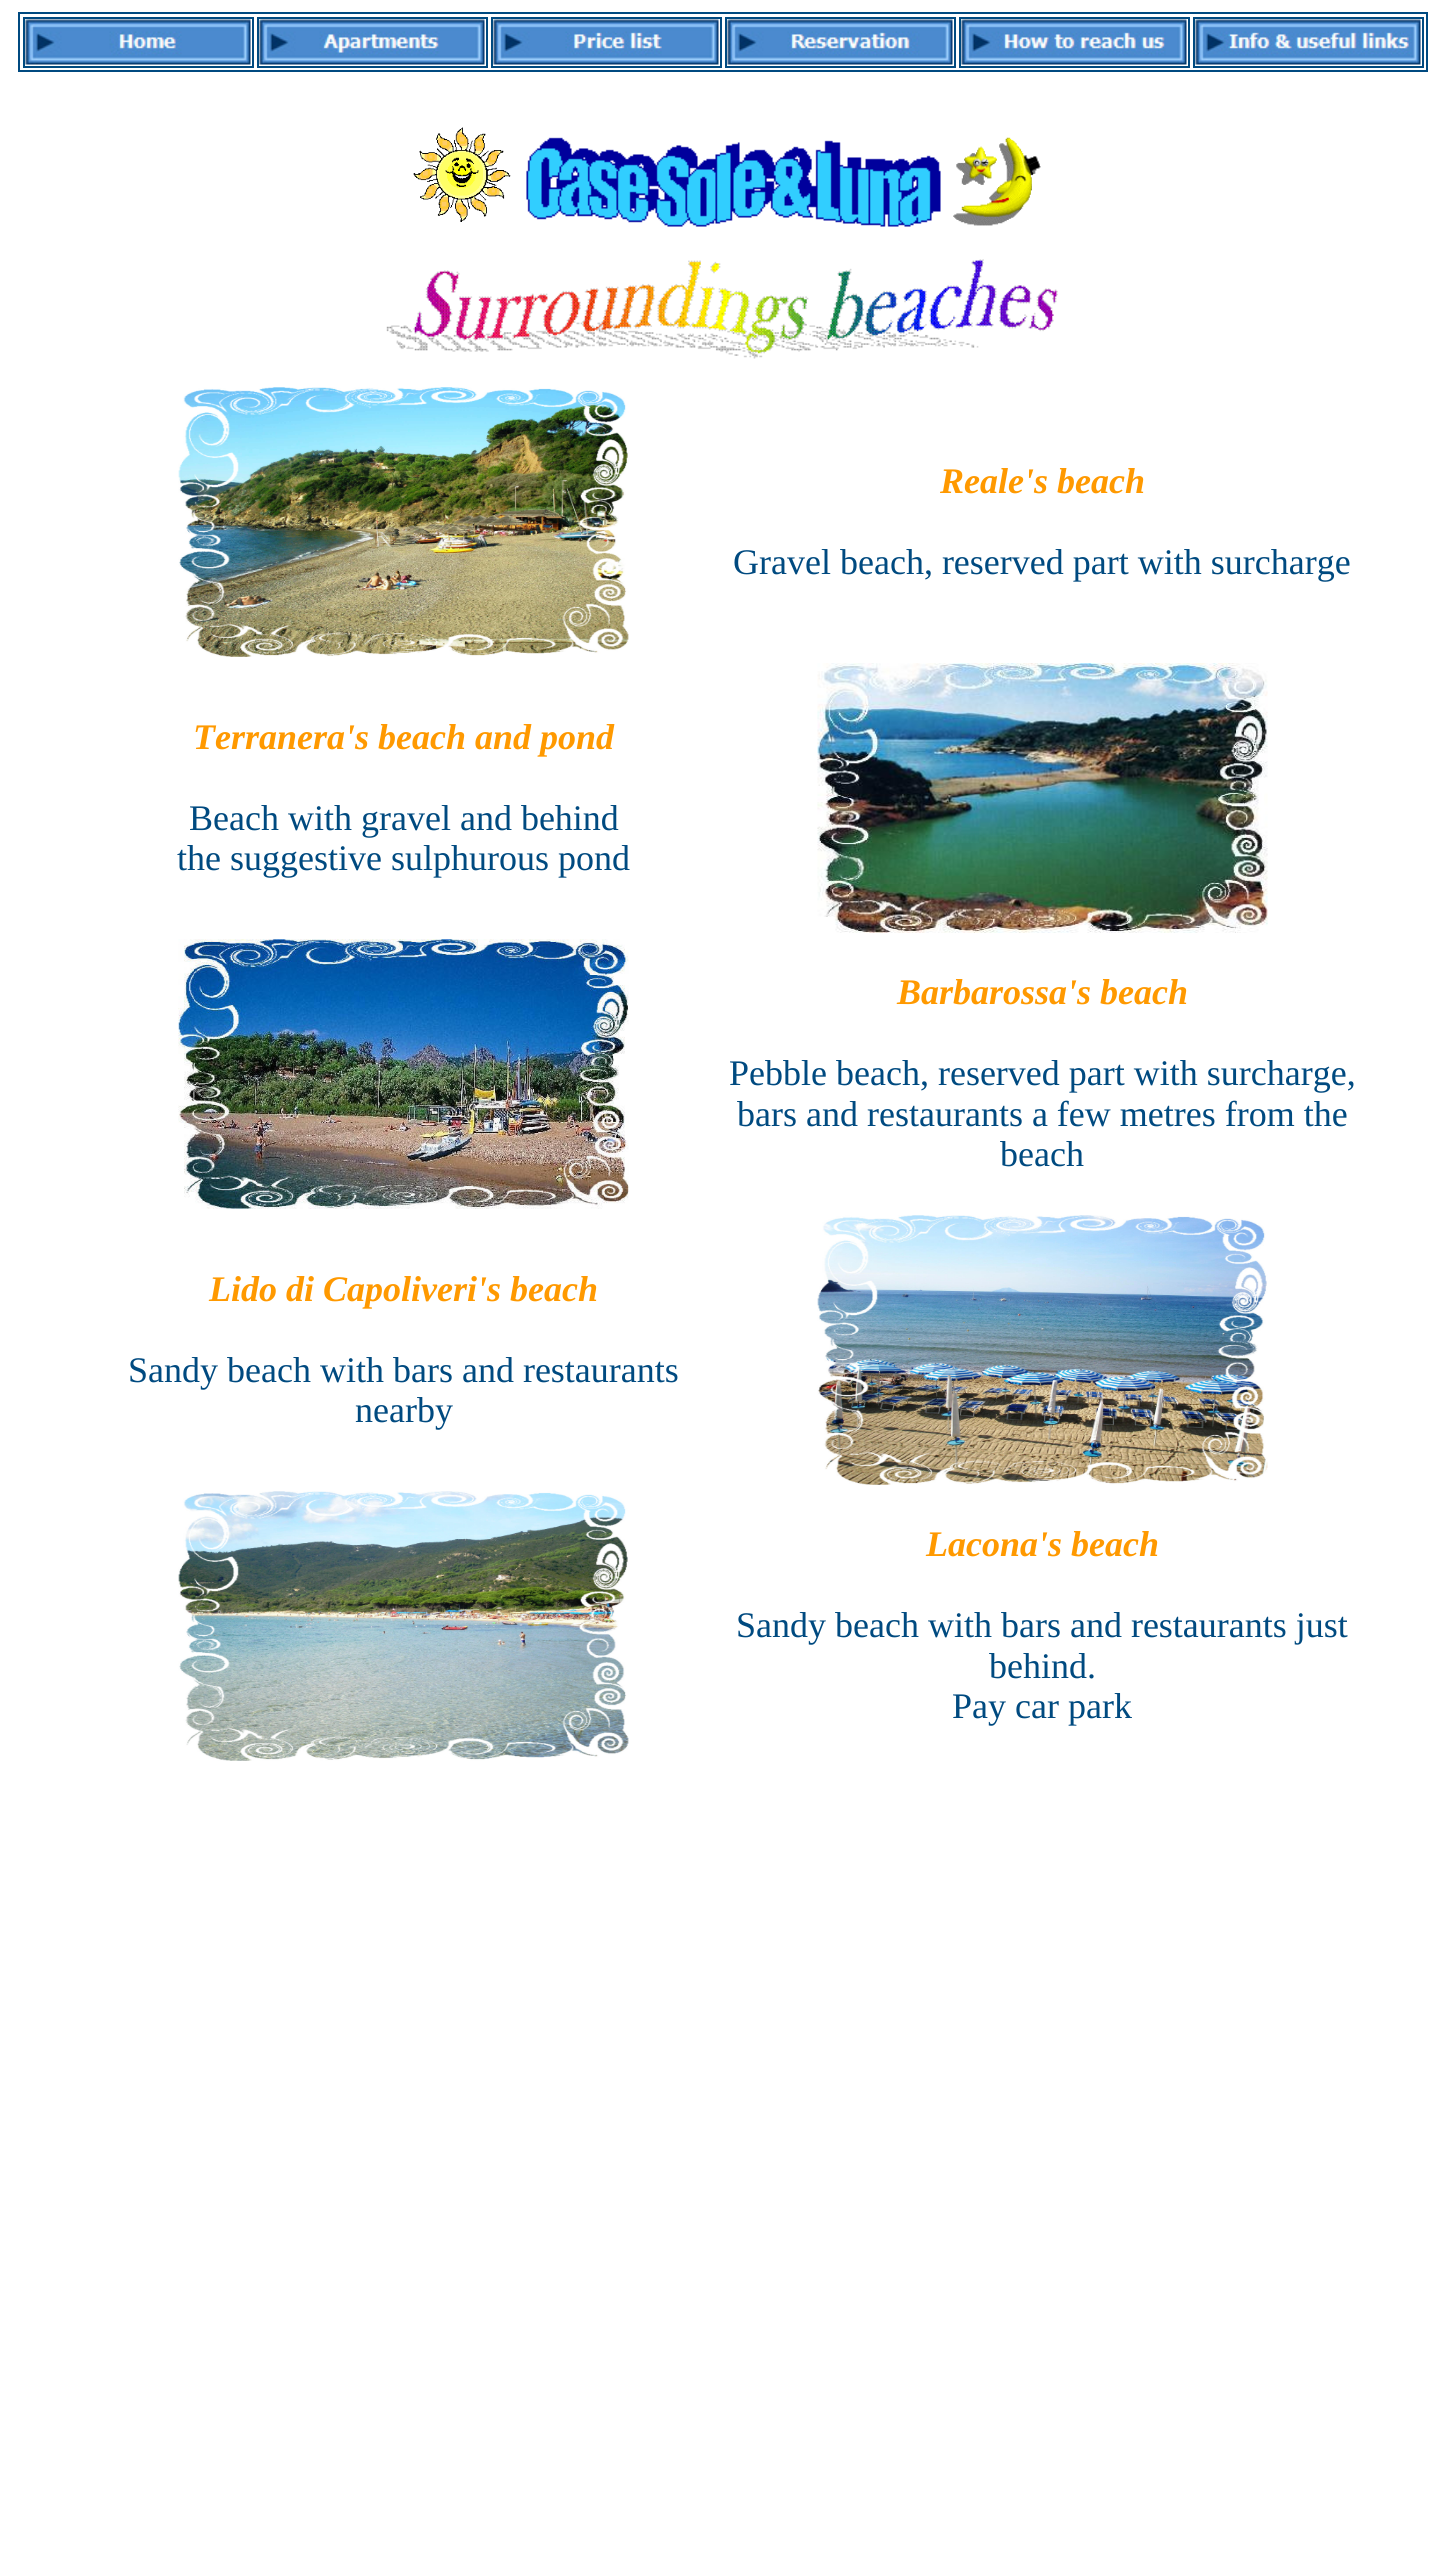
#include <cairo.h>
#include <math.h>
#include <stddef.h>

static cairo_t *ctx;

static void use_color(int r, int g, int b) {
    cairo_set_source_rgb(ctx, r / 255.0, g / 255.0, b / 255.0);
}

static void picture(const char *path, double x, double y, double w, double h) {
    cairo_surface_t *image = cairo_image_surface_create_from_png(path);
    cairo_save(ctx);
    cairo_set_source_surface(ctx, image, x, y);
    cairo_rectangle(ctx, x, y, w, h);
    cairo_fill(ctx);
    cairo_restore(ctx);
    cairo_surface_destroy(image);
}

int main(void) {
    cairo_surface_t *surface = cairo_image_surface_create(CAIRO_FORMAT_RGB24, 1445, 2576);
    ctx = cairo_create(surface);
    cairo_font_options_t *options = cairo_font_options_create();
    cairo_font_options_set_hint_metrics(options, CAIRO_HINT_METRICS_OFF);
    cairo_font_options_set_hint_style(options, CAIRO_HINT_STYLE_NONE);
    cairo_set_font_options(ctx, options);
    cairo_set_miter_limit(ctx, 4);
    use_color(255, 255, 255);
    cairo_paint(ctx);
    cairo_rectangle(ctx, 19, 13, 1408, 58);
    use_color(0, 74, 128);
    cairo_stroke(ctx);
    cairo_rectangle(ctx, 24, 18, 229, 49);
    cairo_stroke(ctx);
    picture("img1.png", 25, 19, 226, 46);
    cairo_rectangle(ctx, 258, 18, 229, 49);
    cairo_stroke(ctx);
    picture("img2.png", 259, 19, 226, 46);
    cairo_rectangle(ctx, 492, 18, 229, 49);
    cairo_stroke(ctx);
    picture("img3.png", 493, 19, 226, 46);
    cairo_rectangle(ctx, 726, 18, 229, 49);
    cairo_stroke(ctx);
    picture("img4.png", 727, 19, 226, 46);
    cairo_rectangle(ctx, 960, 18, 229, 49);
    cairo_stroke(ctx);
    picture("img5.png", 961, 19, 226, 46);
    cairo_rectangle(ctx, 1194, 18, 229, 49);
    cairo_stroke(ctx);
    picture("img6.png", 1195, 19, 226, 46);
    picture("img7.png", 413, 127, 98, 95);
    picture("img8.png", 526, 137, 415, 90);
    picture("img9.png", 953, 137, 88, 89);
    picture("img10.png", 386, 259, 672, 100);
    picture("img11.png", 178, 387, 451, 270);
    cairo_select_font_face(ctx, "Liberation Serif", CAIRO_FONT_SLANT_ITALIC, CAIRO_FONT_WEIGHT_BOLD);
    cairo_set_font_size(ctx, 36);
    use_color(255, 153, 0);
    cairo_move_to(ctx, 940, 493);
    cairo_show_text(ctx, "Reale's beach");
    cairo_select_font_face(ctx, "Liberation Serif", CAIRO_FONT_SLANT_NORMAL, CAIRO_FONT_WEIGHT_NORMAL);
    use_color(0, 74, 128);
    cairo_move_to(ctx, 733, 574);
    cairo_show_text(ctx, "Gravel beach, reserved part with surcharge");
    cairo_select_font_face(ctx, "Liberation Serif", CAIRO_FONT_SLANT_ITALIC, CAIRO_FONT_WEIGHT_BOLD);
    use_color(255, 153, 0);
    cairo_move_to(ctx, 193, 749);
    cairo_show_text(ctx, "Terranera's beach and pond");
    cairo_select_font_face(ctx, "Liberation Serif", CAIRO_FONT_SLANT_NORMAL, CAIRO_FONT_WEIGHT_NORMAL);
    use_color(0, 74, 128);
    cairo_move_to(ctx, 189, 830);
    cairo_show_text(ctx, "Beach with gravel and behind");
    cairo_move_to(ctx, 177, 870);
    cairo_show_text(ctx, "the suggestive sulphurous pond");
    picture("img12.png", 817, 663, 451, 270);
    picture("img13.png", 178, 939, 451, 270);
    cairo_select_font_face(ctx, "Liberation Serif", CAIRO_FONT_SLANT_ITALIC, CAIRO_FONT_WEIGHT_BOLD);
    use_color(255, 153, 0);
    cairo_move_to(ctx, 897, 1004);
    cairo_show_text(ctx, "Barbarossa's beach");
    cairo_select_font_face(ctx, "Liberation Serif", CAIRO_FONT_SLANT_NORMAL, CAIRO_FONT_WEIGHT_NORMAL);
    use_color(0, 74, 128);
    cairo_move_to(ctx, 729, 1085);
    cairo_show_text(ctx, "Pebble beach, reserved part with surcharge,");
    cairo_move_to(ctx, 737, 1126);
    cairo_show_text(ctx, "bars and restaurants a few metres from the");
    cairo_move_to(ctx, 1000, 1166);
    cairo_show_text(ctx, "beach");
    cairo_select_font_face(ctx, "Liberation Serif", CAIRO_FONT_SLANT_ITALIC, CAIRO_FONT_WEIGHT_BOLD);
    use_color(255, 153, 0);
    cairo_move_to(ctx, 209, 1301);
    cairo_show_text(ctx, "Lido di Capoliveri's beach");
    cairo_select_font_face(ctx, "Liberation Serif", CAIRO_FONT_SLANT_NORMAL, CAIRO_FONT_WEIGHT_NORMAL);
    use_color(0, 74, 128);
    cairo_move_to(ctx, 128, 1382);
    cairo_show_text(ctx, "Sandy beach with bars and restaurants");
    cairo_move_to(ctx, 355, 1422);
    cairo_show_text(ctx, "nearby");
    picture("img14.png", 817, 1215, 451, 270);
    picture("img15.png", 178, 1491, 451, 270);
    cairo_select_font_face(ctx, "Liberation Serif", CAIRO_FONT_SLANT_ITALIC, CAIRO_FONT_WEIGHT_BOLD);
    use_color(255, 153, 0);
    cairo_move_to(ctx, 926, 1556);
    cairo_show_text(ctx, "Lacona's beach");
    cairo_select_font_face(ctx, "Liberation Serif", CAIRO_FONT_SLANT_NORMAL, CAIRO_FONT_WEIGHT_NORMAL);
    use_color(0, 74, 128);
    cairo_move_to(ctx, 736, 1637);
    cairo_show_text(ctx, "Sandy beach with bars and restaurants just");
    cairo_move_to(ctx, 989, 1678);
    cairo_show_text(ctx, "behind.");
    cairo_move_to(ctx, 952, 1718);
    cairo_show_text(ctx, "Pay car park");
    cairo_surface_write_to_png(surface, "result.png");
    cairo_font_options_destroy(options);
    cairo_destroy(ctx);
    cairo_surface_destroy(surface);
    return 0;
}
